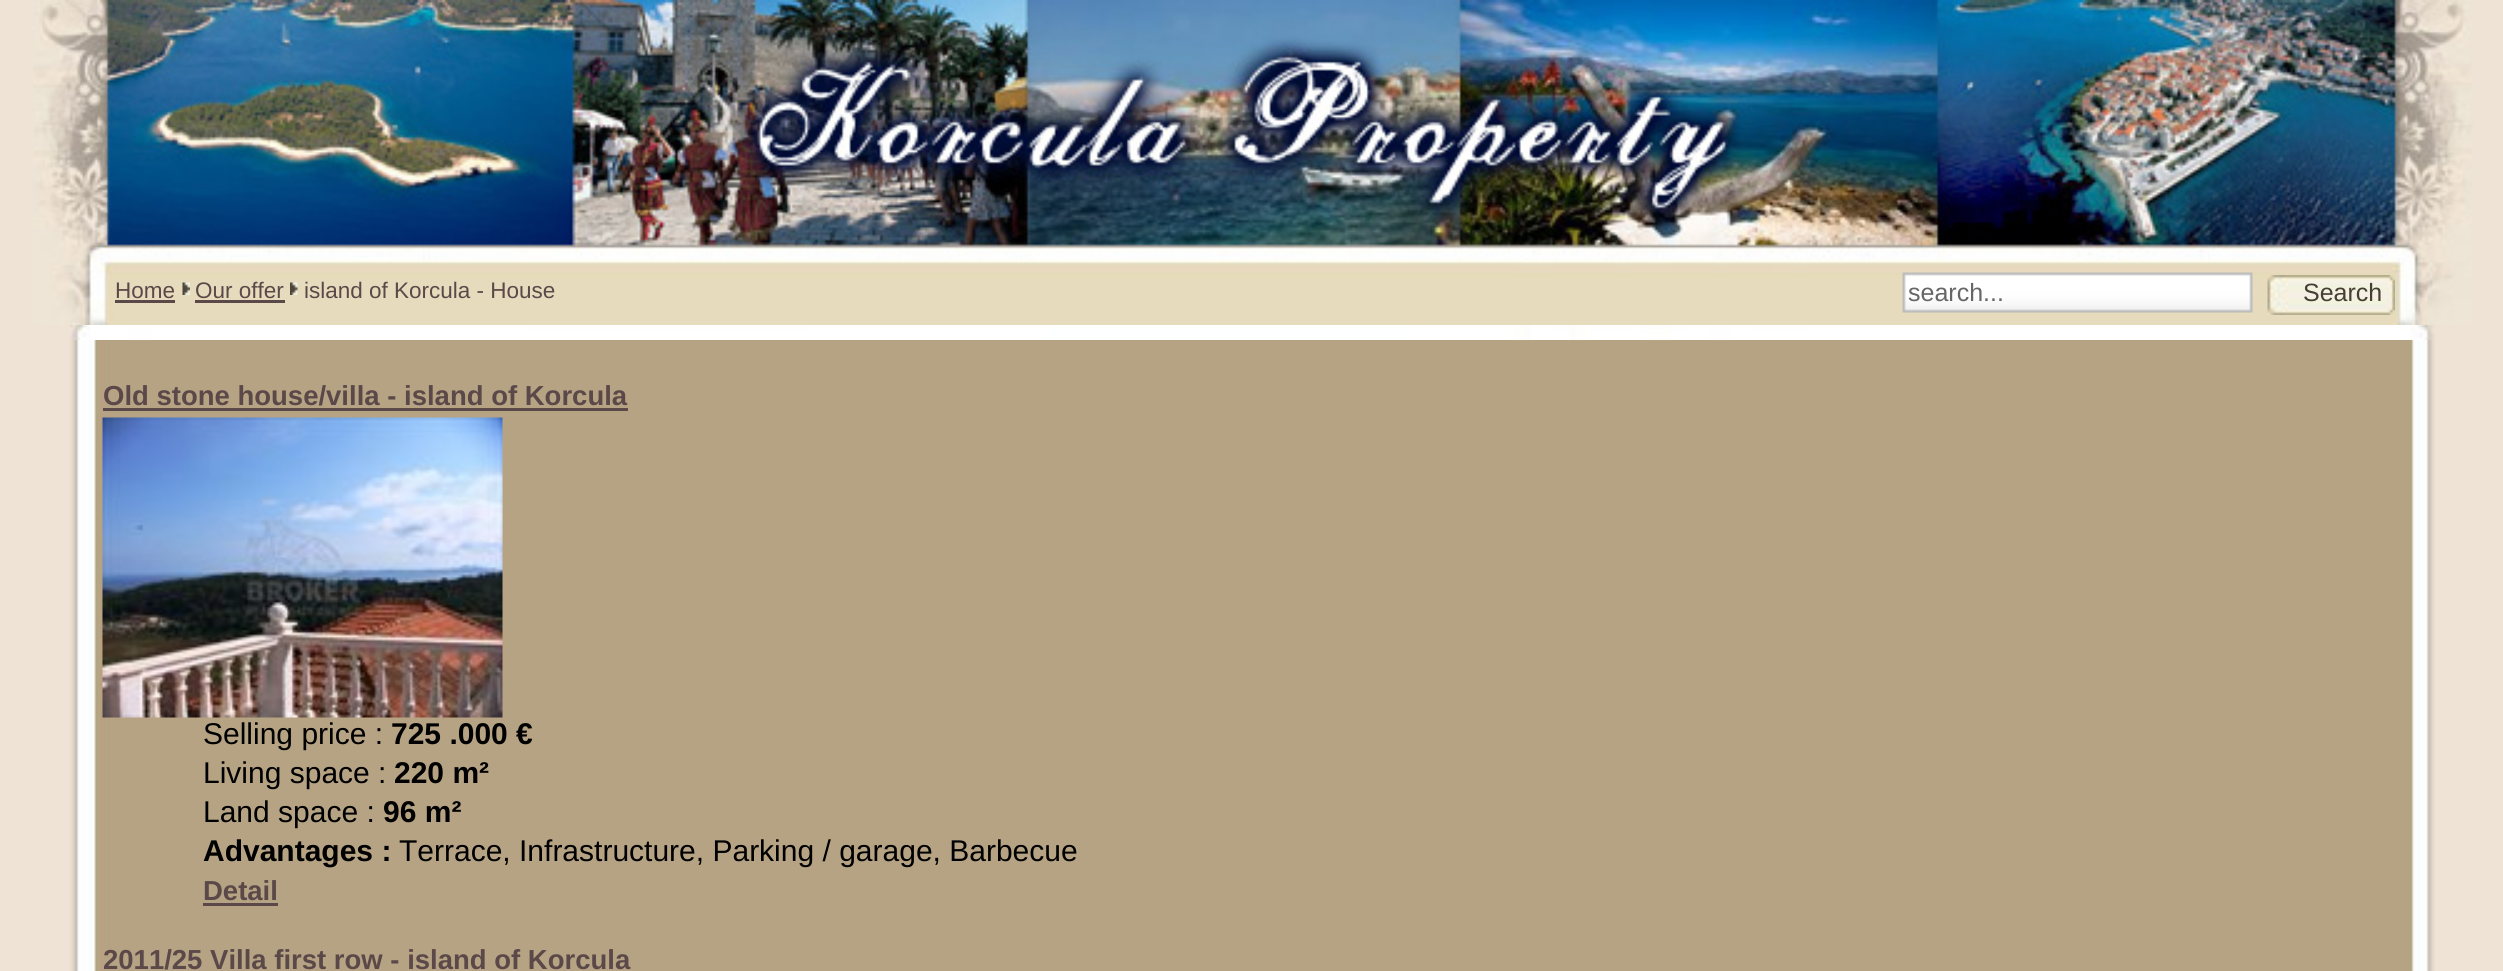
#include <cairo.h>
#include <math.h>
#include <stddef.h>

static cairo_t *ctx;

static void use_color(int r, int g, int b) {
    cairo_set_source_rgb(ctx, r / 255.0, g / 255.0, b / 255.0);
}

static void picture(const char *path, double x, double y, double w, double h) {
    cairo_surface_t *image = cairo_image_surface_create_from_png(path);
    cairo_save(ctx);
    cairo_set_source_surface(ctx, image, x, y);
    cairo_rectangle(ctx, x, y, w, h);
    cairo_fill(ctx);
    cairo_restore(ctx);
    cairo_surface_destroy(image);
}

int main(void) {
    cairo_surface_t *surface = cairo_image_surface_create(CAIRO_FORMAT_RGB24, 2503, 971);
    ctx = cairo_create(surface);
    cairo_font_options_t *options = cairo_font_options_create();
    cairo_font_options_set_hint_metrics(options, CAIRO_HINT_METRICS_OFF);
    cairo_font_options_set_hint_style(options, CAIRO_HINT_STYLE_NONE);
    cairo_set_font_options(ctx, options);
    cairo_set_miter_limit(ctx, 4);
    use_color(239, 227, 214);
    cairo_paint(ctx);
    picture("img1.png", 33, 0, 2440, 325);
    cairo_select_font_face(ctx, "Liberation Sans", CAIRO_FONT_SLANT_NORMAL, CAIRO_FONT_WEIGHT_NORMAL);
    cairo_set_font_size(ctx, 22.5);
    use_color(91, 72, 72);
    cairo_move_to(ctx, 115, 298);
    cairo_show_text(ctx, "Home");
    cairo_rectangle(ctx, 115, 300, 60, 3);
    cairo_fill(ctx);
    picture("img2.png", 182, 282, 8, 13);
    cairo_move_to(ctx, 195, 298);
    cairo_show_text(ctx, "Our offer");
    cairo_rectangle(ctx, 195, 300, 90, 3);
    cairo_fill(ctx);
    picture("img3.png", 290, 282, 8, 13);
    cairo_move_to(ctx, 304, 298);
    cairo_show_text(ctx, "island of Korcula - House");
    picture("img4.png", 1902, 272, 351, 41);
    cairo_set_font_size(ctx, 25);
    use_color(102, 102, 102);
    cairo_move_to(ctx, 1908, 301);
    cairo_show_text(ctx, "search...");
    picture("img5.png", 2267, 275, 128, 40);
    use_color(69, 63, 51);
    cairo_move_to(ctx, 2303, 301);
    cairo_show_text(ctx, "Search");
    picture("img6.png", 70, 325, 2365, 15);
    picture("img7.png", 70, 340, 2365, 631);
    cairo_select_font_face(ctx, "Liberation Sans", CAIRO_FONT_SLANT_NORMAL, CAIRO_FONT_WEIGHT_BOLD);
    cairo_set_font_size(ctx, 27.5);
    use_color(91, 72, 72);
    cairo_move_to(ctx, 103, 405);
    cairo_show_text(ctx, "Old stone house/villa - island of Korcula");
    cairo_rectangle(ctx, 103, 408, 525, 3);
    cairo_fill(ctx);
    picture("img8.png", 102, 417, 401, 301);
    cairo_select_font_face(ctx, "Liberation Sans", CAIRO_FONT_SLANT_NORMAL, CAIRO_FONT_WEIGHT_NORMAL);
    cairo_set_font_size(ctx, 30);
    use_color(0, 0, 0);
    cairo_move_to(ctx, 203, 744);
    cairo_show_text(ctx, "Selling price :");
    cairo_select_font_face(ctx, "Liberation Sans", CAIRO_FONT_SLANT_NORMAL, CAIRO_FONT_WEIGHT_BOLD);
    cairo_move_to(ctx, 391, 744);
    cairo_show_text(ctx, "725 .000 €");
    cairo_select_font_face(ctx, "Liberation Sans", CAIRO_FONT_SLANT_NORMAL, CAIRO_FONT_WEIGHT_NORMAL);
    cairo_move_to(ctx, 203, 783);
    cairo_show_text(ctx, "Living space :");
    cairo_select_font_face(ctx, "Liberation Sans", CAIRO_FONT_SLANT_NORMAL, CAIRO_FONT_WEIGHT_BOLD);
    cairo_move_to(ctx, 394, 783);
    cairo_show_text(ctx, "220 m²");
    cairo_select_font_face(ctx, "Liberation Sans", CAIRO_FONT_SLANT_NORMAL, CAIRO_FONT_WEIGHT_NORMAL);
    cairo_move_to(ctx, 203, 822);
    cairo_show_text(ctx, "Land space :");
    cairo_select_font_face(ctx, "Liberation Sans", CAIRO_FONT_SLANT_NORMAL, CAIRO_FONT_WEIGHT_BOLD);
    cairo_move_to(ctx, 383, 822);
    cairo_show_text(ctx, "96 m²");
    cairo_move_to(ctx, 203, 861);
    cairo_show_text(ctx, "Advantages :");
    cairo_select_font_face(ctx, "Liberation Sans", CAIRO_FONT_SLANT_NORMAL, CAIRO_FONT_WEIGHT_NORMAL);
    cairo_move_to(ctx, 399, 861);
    cairo_show_text(ctx, "Terrace, Infrastructure, Parking / garage, Barbecue");
    cairo_select_font_face(ctx, "Liberation Sans", CAIRO_FONT_SLANT_NORMAL, CAIRO_FONT_WEIGHT_BOLD);
    cairo_set_font_size(ctx, 27.5);
    use_color(91, 72, 72);
    cairo_move_to(ctx, 203, 900);
    cairo_show_text(ctx, "Detail");
    cairo_rectangle(ctx, 203, 903, 75, 3);
    cairo_fill(ctx);
    cairo_move_to(ctx, 103, 969);
    cairo_show_text(ctx, "2011/25 Villa first row - island of Korcula");
    cairo_surface_write_to_png(surface, "result.png");
    cairo_font_options_destroy(options);
    cairo_destroy(ctx);
    cairo_surface_destroy(surface);
    return 0;
}
